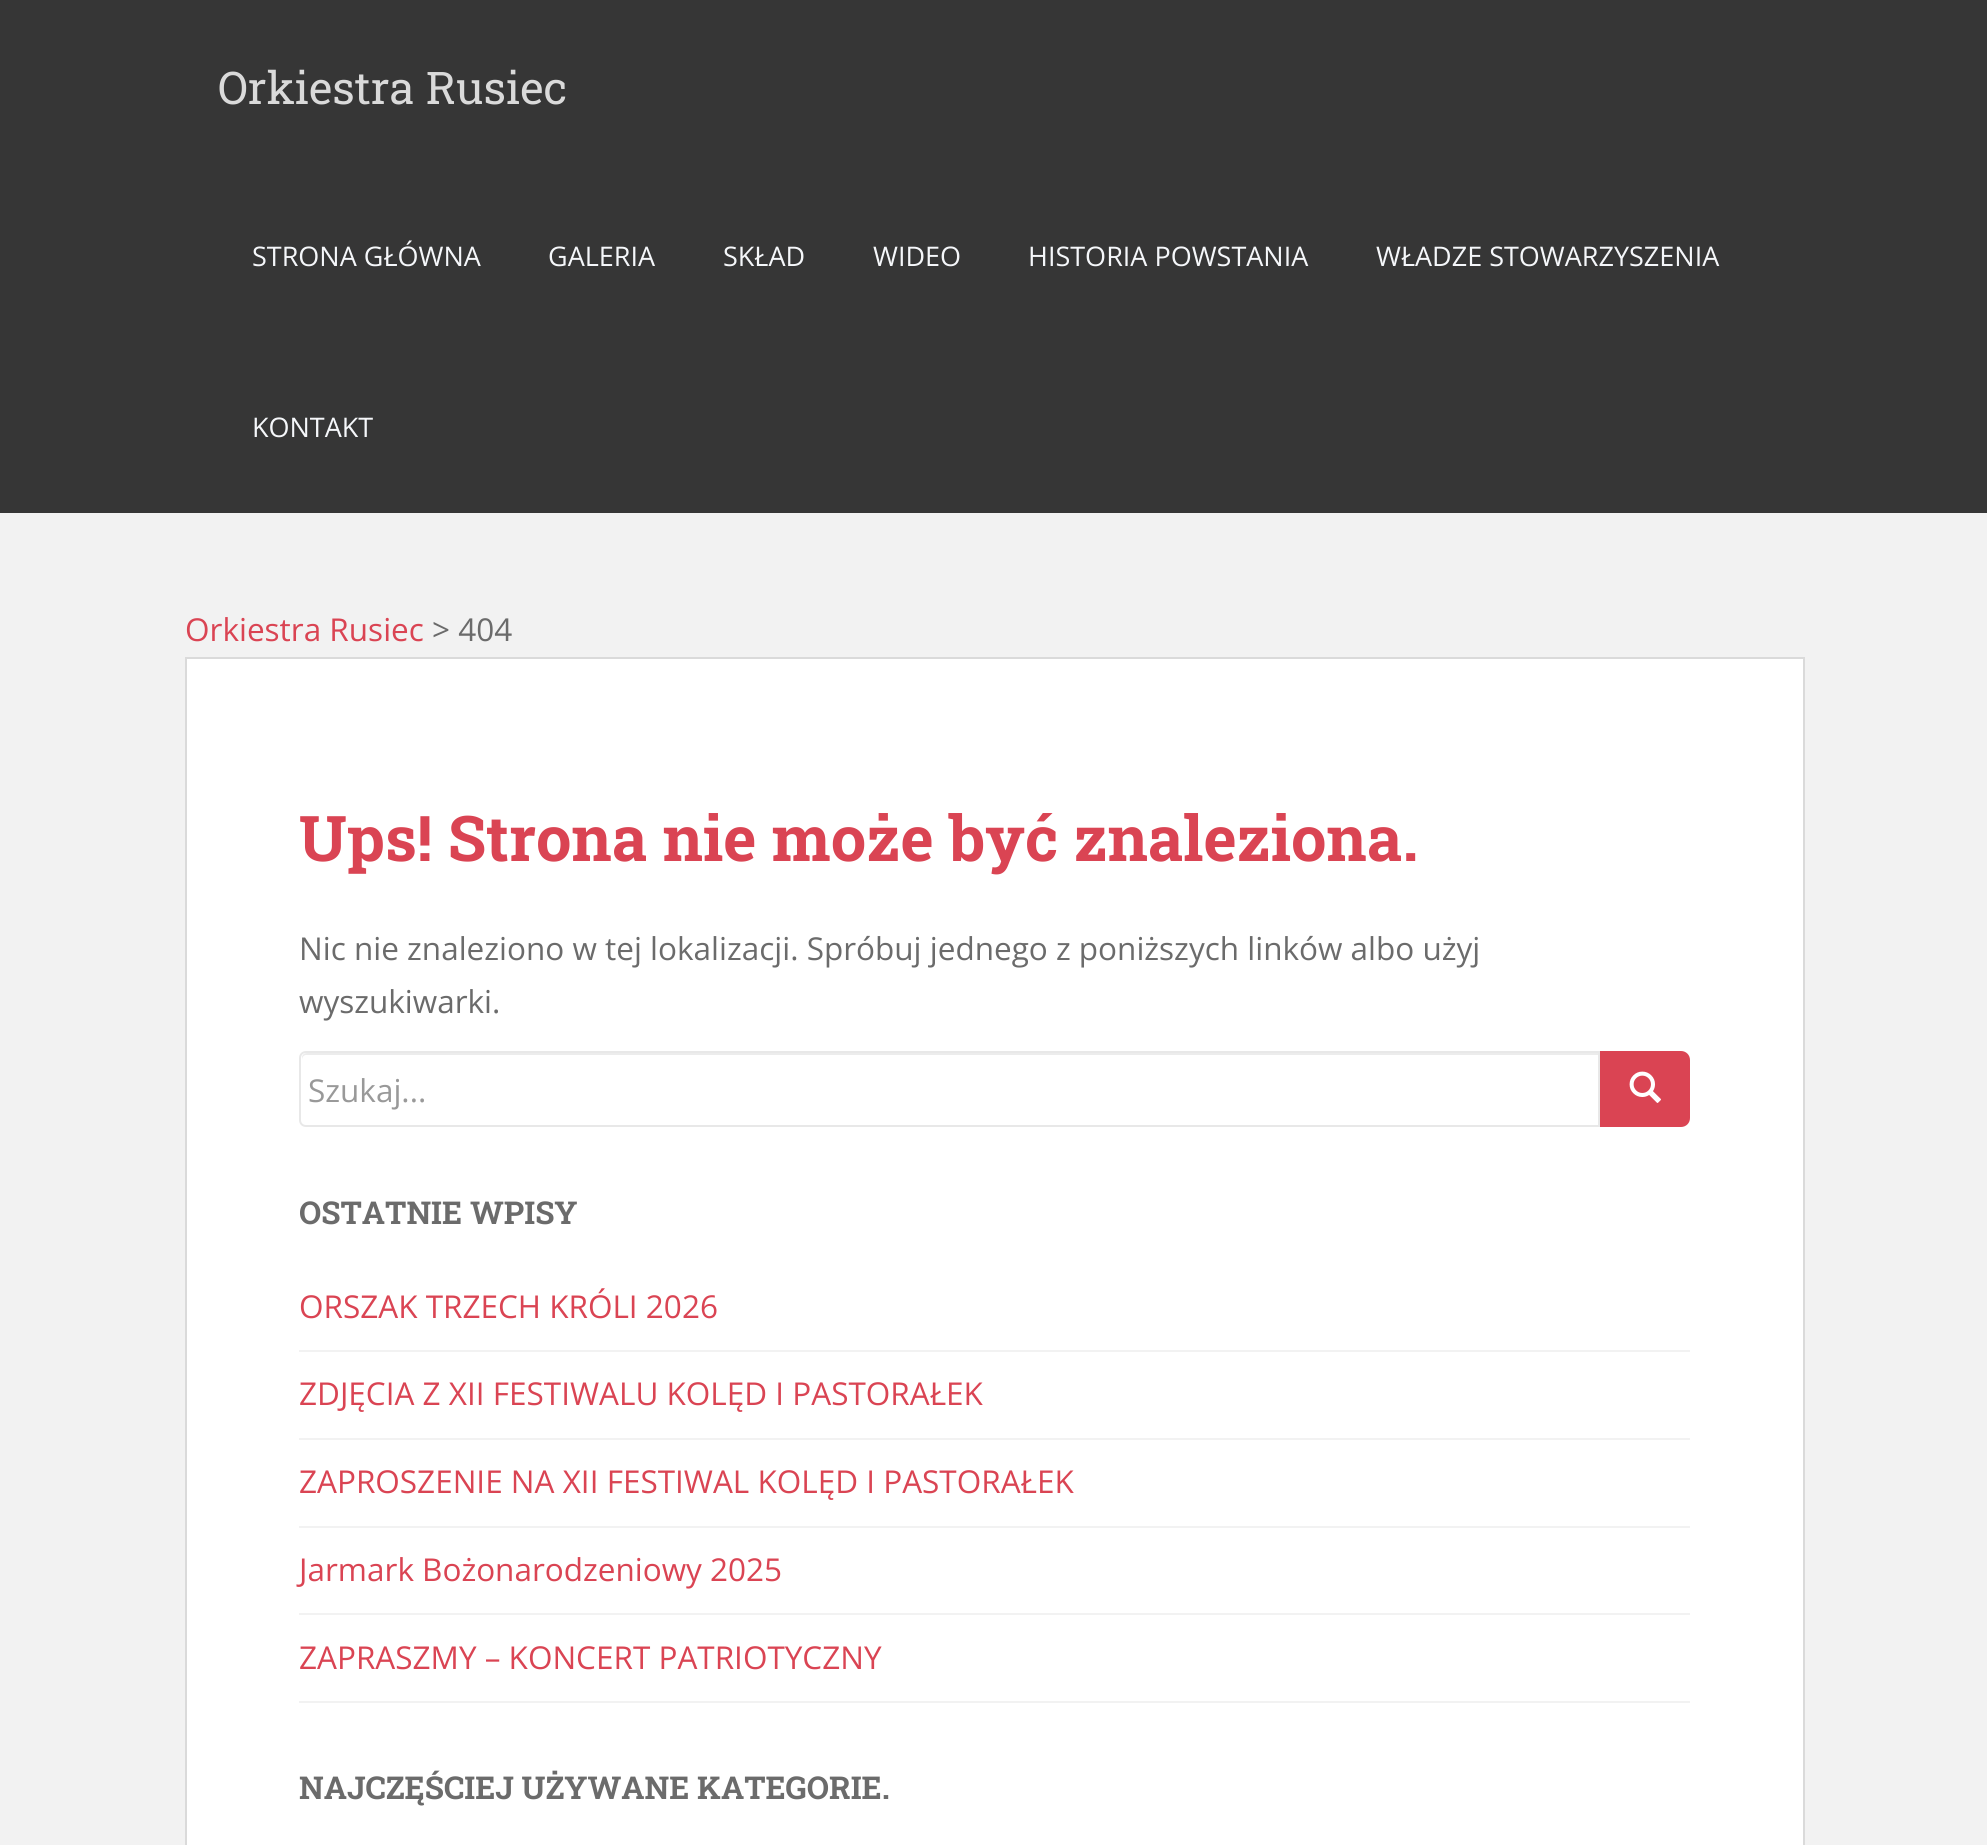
#include <cairo.h>
#include <math.h>
#include <stddef.h>

static cairo_t *ctx;

static void use_color(int r, int g, int b) {
    cairo_set_source_rgb(ctx, r / 255.0, g / 255.0, b / 255.0);
}

static void picture(const char *path, double x, double y, double w, double h) {
    cairo_surface_t *image = cairo_image_surface_create_from_png(path);
    cairo_save(ctx);
    cairo_set_source_surface(ctx, image, x, y);
    cairo_rectangle(ctx, x, y, w, h);
    cairo_fill(ctx);
    cairo_restore(ctx);
    cairo_surface_destroy(image);
}

int main(void) {
    cairo_surface_t *surface = cairo_image_surface_create(CAIRO_FORMAT_RGB24, 1987, 1845);
    ctx = cairo_create(surface);
    cairo_font_options_t *options = cairo_font_options_create();
    cairo_font_options_set_hint_metrics(options, CAIRO_HINT_METRICS_OFF);
    cairo_font_options_set_hint_style(options, CAIRO_HINT_STYLE_NONE);
    cairo_set_font_options(ctx, options);
    cairo_set_miter_limit(ctx, 4);
    use_color(242, 242, 242);
    cairo_paint(ctx);
    use_color(54, 54, 54);
    cairo_rectangle(ctx, 0, 0, 1987, 513);
    cairo_fill(ctx);
    cairo_select_font_face(ctx, "Roboto Slab", CAIRO_FONT_SLANT_NORMAL, CAIRO_FONT_WEIGHT_NORMAL);
    cairo_set_font_size(ctx, 45);
    use_color(218, 218, 218);
    cairo_move_to(ctx, 218, 104);
    cairo_show_text(ctx, "Orkiestra Rusiec");
    cairo_select_font_face(ctx, "Open Sans", CAIRO_FONT_SLANT_NORMAL, CAIRO_FONT_WEIGHT_NORMAL);
    cairo_set_font_size(ctx, 27);
    use_color(245, 247, 250);
    cairo_move_to(ctx, 252, 266);
    cairo_show_text(ctx, "STRONA GŁÓWNA");
    cairo_move_to(ctx, 548, 266);
    cairo_show_text(ctx, "GALERIA");
    cairo_move_to(ctx, 723, 266);
    cairo_show_text(ctx, "SKŁAD");
    cairo_move_to(ctx, 873, 266);
    cairo_show_text(ctx, "WIDEO");
    cairo_move_to(ctx, 1028, 266);
    cairo_show_text(ctx, "HISTORIA POWSTANIA");
    cairo_move_to(ctx, 1376, 266);
    cairo_show_text(ctx, "WŁADZE STOWARZYSZENIA");
    cairo_move_to(ctx, 252, 437);
    cairo_show_text(ctx, "KONTAKT");
    cairo_set_font_size(ctx, 31.5);
    use_color(218, 68, 83);
    cairo_move_to(ctx, 185, 641);
    cairo_show_text(ctx, "Orkiestra Rusiec");
    use_color(107, 107, 107);
    cairo_move_to(ctx, 432, 641);
    cairo_show_text(ctx, "> 404");
    use_color(255, 255, 255);
    cairo_rectangle(ctx, 186, 658, 1618, 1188);
    cairo_fill_preserve(ctx);
    use_color(218, 218, 218);
    cairo_stroke(ctx);
    cairo_select_font_face(ctx, "Roboto Slab", CAIRO_FONT_SLANT_NORMAL, CAIRO_FONT_WEIGHT_BOLD);
    cairo_set_font_size(ctx, 63);
    use_color(218, 68, 83);
    cairo_move_to(ctx, 299, 861);
    cairo_show_text(ctx, "Ups! Strona nie może być znaleziona.");
    cairo_select_font_face(ctx, "Open Sans", CAIRO_FONT_SLANT_NORMAL, CAIRO_FONT_WEIGHT_NORMAL);
    cairo_set_font_size(ctx, 31.5);
    use_color(107, 107, 107);
    cairo_move_to(ctx, 299, 960);
    cairo_show_text(ctx, "Nic nie znaleziono w tej lokalizacji. Spróbuj jednego z poniższych linków albo użyj");
    cairo_move_to(ctx, 299, 1013);
    cairo_show_text(ctx, "wyszukiwarki.");
    use_color(236, 236, 236);
    cairo_new_path(ctx);
    cairo_move_to(ctx, 306, 1055);
    cairo_line_to(ctx, 1598, 1055);
    cairo_line_to(ctx, 1598, 1053);
    cairo_line_to(ctx, 307, 1053);
    cairo_curve_to(ctx, 304, 1053, 302, 1055, 302, 1058);
    cairo_line_to(ctx, 302, 1060);
    cairo_curve_to(ctx, 302, 1057, 304, 1055, 306, 1055);
    cairo_close_path(ctx);
    cairo_fill(ctx);
    cairo_new_path(ctx);
    cairo_move_to(ctx, 306, 1052);
    cairo_line_to(ctx, 1599, 1052);
    cairo_line_to(ctx, 1599, 1126);
    cairo_line_to(ctx, 306, 1126);
    cairo_curve_to(ctx, 302.5, 1126, 300, 1123.5, 300, 1120);
    cairo_line_to(ctx, 300, 1058);
    cairo_curve_to(ctx, 300, 1054.5, 302.5, 1052, 306, 1052);
    cairo_close_path(ctx);
    use_color(232, 232, 232);
    cairo_stroke(ctx);
    use_color(153, 153, 153);
    cairo_move_to(ctx, 308, 1102);
    cairo_show_text(ctx, "Szukaj...");
    use_color(218, 68, 83);
    cairo_new_path(ctx);
    cairo_move_to(ctx, 1601, 1052);
    cairo_line_to(ctx, 1681, 1052);
    cairo_curve_to(ctx, 1685.5, 1052, 1689, 1055.5, 1689, 1060);
    cairo_line_to(ctx, 1689, 1118);
    cairo_curve_to(ctx, 1689, 1122.5, 1685.5, 1126, 1681, 1126);
    cairo_line_to(ctx, 1601, 1126);
    cairo_close_path(ctx);
    cairo_fill_preserve(ctx);
    cairo_stroke(ctx);
    picture("img1.png", 1629, 1071, 32, 32);
    cairo_select_font_face(ctx, "Roboto Slab", CAIRO_FONT_SLANT_NORMAL, CAIRO_FONT_WEIGHT_BOLD);
    use_color(107, 107, 107);
    cairo_move_to(ctx, 299, 1224);
    cairo_show_text(ctx, "OSTATNIE WPISY");
    use_color(242, 242, 242);
    cairo_rectangle(ctx, 299, 1350, 1391, 2);
    cairo_fill(ctx);
    cairo_select_font_face(ctx, "Open Sans", CAIRO_FONT_SLANT_NORMAL, CAIRO_FONT_WEIGHT_NORMAL);
    use_color(218, 68, 83);
    cairo_move_to(ctx, 299, 1318);
    cairo_show_text(ctx, "ORSZAK TRZECH KRÓLI 2026");
    use_color(242, 242, 242);
    cairo_rectangle(ctx, 299, 1438, 1391, 2);
    cairo_fill(ctx);
    use_color(218, 68, 83);
    cairo_move_to(ctx, 299, 1405);
    cairo_show_text(ctx, "ZDJĘCIA Z XII FESTIWALU KOLĘD I PASTORAŁEK");
    use_color(242, 242, 242);
    cairo_rectangle(ctx, 299, 1526, 1391, 2);
    cairo_fill(ctx);
    use_color(218, 68, 83);
    cairo_move_to(ctx, 299, 1493);
    cairo_show_text(ctx, "ZAPROSZENIE NA XII FESTIWAL KOLĘD I PASTORAŁEK");
    use_color(242, 242, 242);
    cairo_rectangle(ctx, 299, 1613, 1391, 2);
    cairo_fill(ctx);
    use_color(218, 68, 83);
    cairo_move_to(ctx, 299, 1581);
    cairo_show_text(ctx, "Jarmark Bożonarodzeniowy 2025");
    use_color(242, 242, 242);
    cairo_rectangle(ctx, 299, 1701, 1391, 2);
    cairo_fill(ctx);
    use_color(218, 68, 83);
    cairo_move_to(ctx, 299, 1669);
    cairo_show_text(ctx, "ZAPRASZMY – KONCERT PATRIOTYCZNY");
    cairo_select_font_face(ctx, "Roboto Slab", CAIRO_FONT_SLANT_NORMAL, CAIRO_FONT_WEIGHT_BOLD);
    use_color(107, 107, 107);
    cairo_move_to(ctx, 299, 1799);
    cairo_show_text(ctx, "NAJCZĘŚCIEJ UŻYWANE KATEGORIE.");
    cairo_surface_write_to_png(surface, "result.png");
    cairo_font_options_destroy(options);
    cairo_destroy(ctx);
    cairo_surface_destroy(surface);
    return 0;
}
